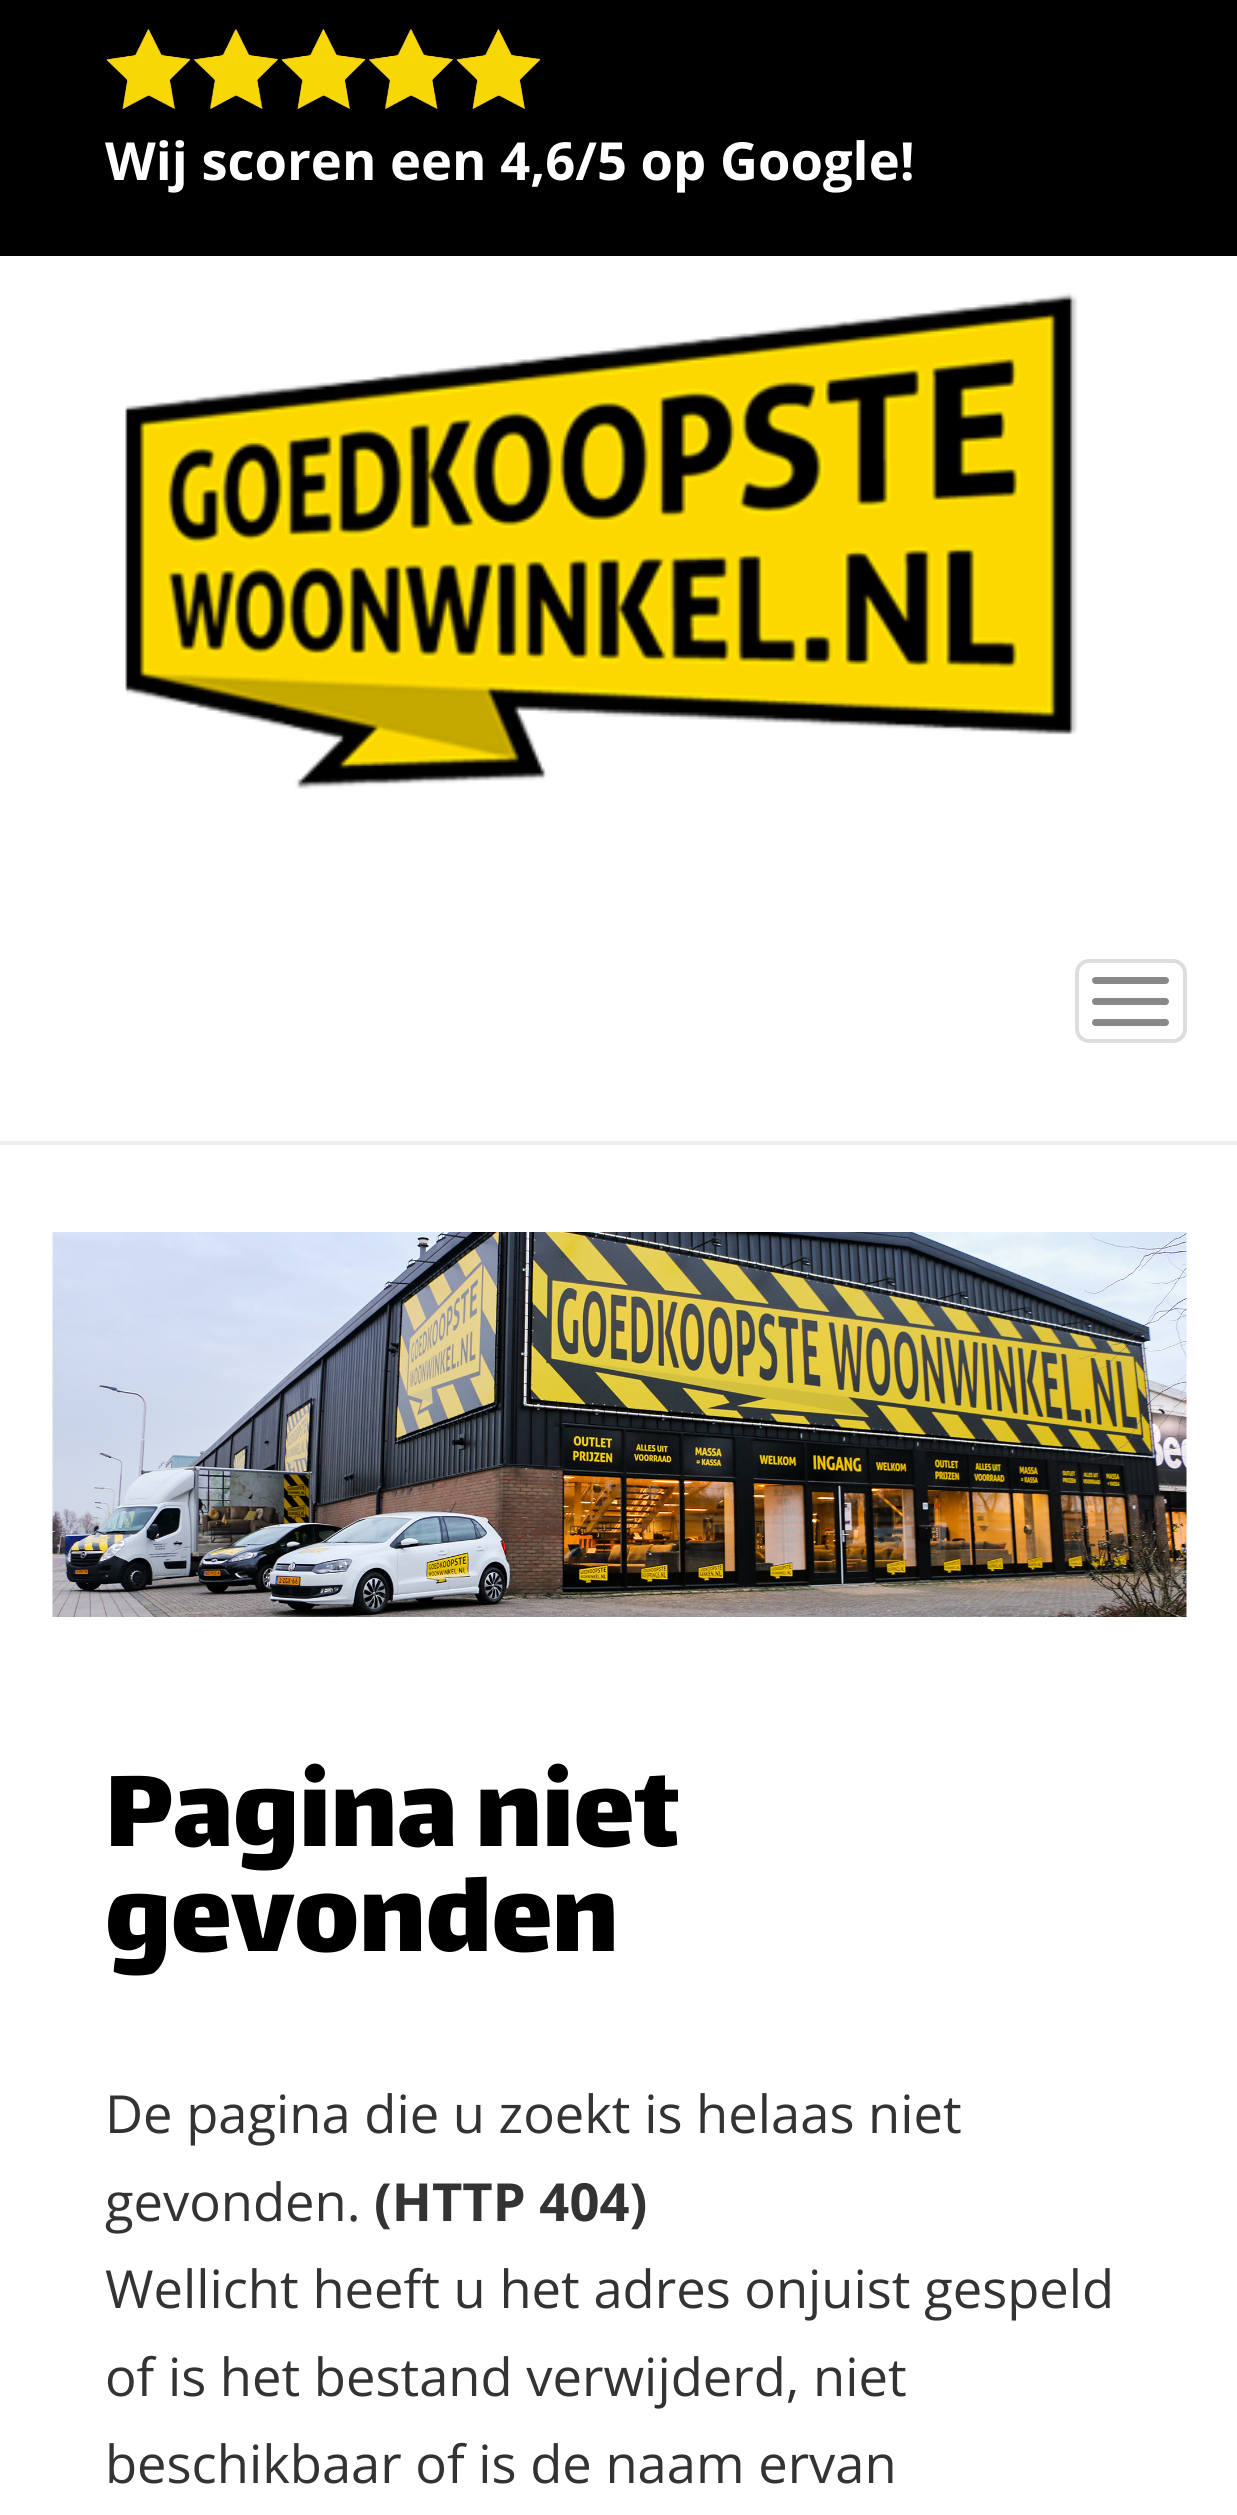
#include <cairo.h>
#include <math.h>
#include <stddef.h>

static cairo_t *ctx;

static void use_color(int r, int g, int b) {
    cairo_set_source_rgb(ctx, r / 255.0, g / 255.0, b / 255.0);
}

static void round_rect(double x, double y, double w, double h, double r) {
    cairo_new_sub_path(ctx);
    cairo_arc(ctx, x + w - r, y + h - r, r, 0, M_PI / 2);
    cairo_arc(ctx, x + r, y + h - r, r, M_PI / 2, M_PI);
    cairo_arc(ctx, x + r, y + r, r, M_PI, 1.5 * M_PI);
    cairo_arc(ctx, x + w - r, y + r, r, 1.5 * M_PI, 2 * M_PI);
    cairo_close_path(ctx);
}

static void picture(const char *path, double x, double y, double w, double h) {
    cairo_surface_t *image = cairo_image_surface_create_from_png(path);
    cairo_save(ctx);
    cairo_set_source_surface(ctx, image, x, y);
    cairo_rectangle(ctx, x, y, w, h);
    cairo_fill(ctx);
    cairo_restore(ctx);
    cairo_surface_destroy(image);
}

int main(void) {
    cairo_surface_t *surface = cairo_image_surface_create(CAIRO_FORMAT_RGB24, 1237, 2515);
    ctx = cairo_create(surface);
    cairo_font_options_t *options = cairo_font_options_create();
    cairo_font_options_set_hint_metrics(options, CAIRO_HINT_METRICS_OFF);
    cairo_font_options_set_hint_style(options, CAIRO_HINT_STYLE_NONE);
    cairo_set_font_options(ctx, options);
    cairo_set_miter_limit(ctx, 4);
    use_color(255, 255, 255);
    cairo_paint(ctx);
    use_color(0, 0, 0);
    cairo_rectangle(ctx, 0, 0, 1237, 256);
    cairo_fill(ctx);
    picture("img1.png", 106, 29, 85, 80);
    picture("img2.png", 194, 29, 84, 80);
    picture("img1.png", 281, 29, 85, 80);
    picture("img3.png", 369, 29, 84, 80);
    picture("img1.png", 456, 29, 85, 80);
    cairo_select_font_face(ctx, "Open Sans", CAIRO_FONT_SLANT_NORMAL, CAIRO_FONT_WEIGHT_BOLD);
    cairo_set_font_size(ctx, 52.5);
    use_color(255, 255, 255);
    cairo_move_to(ctx, 105, 180);
    cairo_show_text(ctx, "Wij scoren een 4,6/5 op Google!");
    picture("img4.png", 125, 292, 953, 497);
    round_rect(1077, 961, 108, 80, 12);
    use_color(221, 221, 221);
    cairo_set_line_width(ctx, 4);
    cairo_stroke(ctx);
    use_color(136, 136, 136);
    round_rect(1092, 977, 77, 7, 3.5);
    cairo_fill(ctx);
    round_rect(1092, 998, 77, 7, 3.5);
    cairo_fill(ctx);
    round_rect(1092, 1019, 77, 7, 3.5);
    cairo_fill(ctx);
    use_color(238, 238, 238);
    cairo_rectangle(ctx, 0, 1141, 1237, 4);
    cairo_fill(ctx);
    picture("img5.png", 52, 1232, 1135, 385);
    cairo_select_font_face(ctx, "Lalezar", CAIRO_FONT_SLANT_NORMAL, CAIRO_FONT_WEIGHT_NORMAL);
    cairo_set_font_size(ctx, 122.5);
    use_color(0, 0, 0);
    cairo_move_to(ctx, 105, 1846);
    cairo_show_text(ctx, "Pagina niet");
    cairo_move_to(ctx, 105, 1951);
    cairo_show_text(ctx, "gevonden");
    cairo_select_font_face(ctx, "Open Sans", CAIRO_FONT_SLANT_NORMAL, CAIRO_FONT_WEIGHT_NORMAL);
    cairo_set_font_size(ctx, 52.5);
    use_color(51, 51, 51);
    cairo_move_to(ctx, 105, 2133);
    cairo_show_text(ctx, "De pagina die u zoekt is helaas niet");
    cairo_move_to(ctx, 105, 2221);
    cairo_show_text(ctx, "gevonden.");
    cairo_select_font_face(ctx, "Open Sans", CAIRO_FONT_SLANT_NORMAL, CAIRO_FONT_WEIGHT_BOLD);
    cairo_move_to(ctx, 374, 2221);
    cairo_show_text(ctx, "(HTTP 404)");
    cairo_select_font_face(ctx, "Open Sans", CAIRO_FONT_SLANT_NORMAL, CAIRO_FONT_WEIGHT_NORMAL);
    cairo_move_to(ctx, 105, 2308);
    cairo_show_text(ctx, "Wellicht heeft u het adres onjuist gespeld");
    cairo_move_to(ctx, 105, 2396);
    cairo_show_text(ctx, "of is het bestand verwijderd, niet");
    cairo_move_to(ctx, 105, 2483);
    cairo_show_text(ctx, "beschikbaar of is de naam ervan");
    cairo_surface_write_to_png(surface, "result.png");
    cairo_font_options_destroy(options);
    cairo_destroy(ctx);
    cairo_surface_destroy(surface);
    return 0;
}
